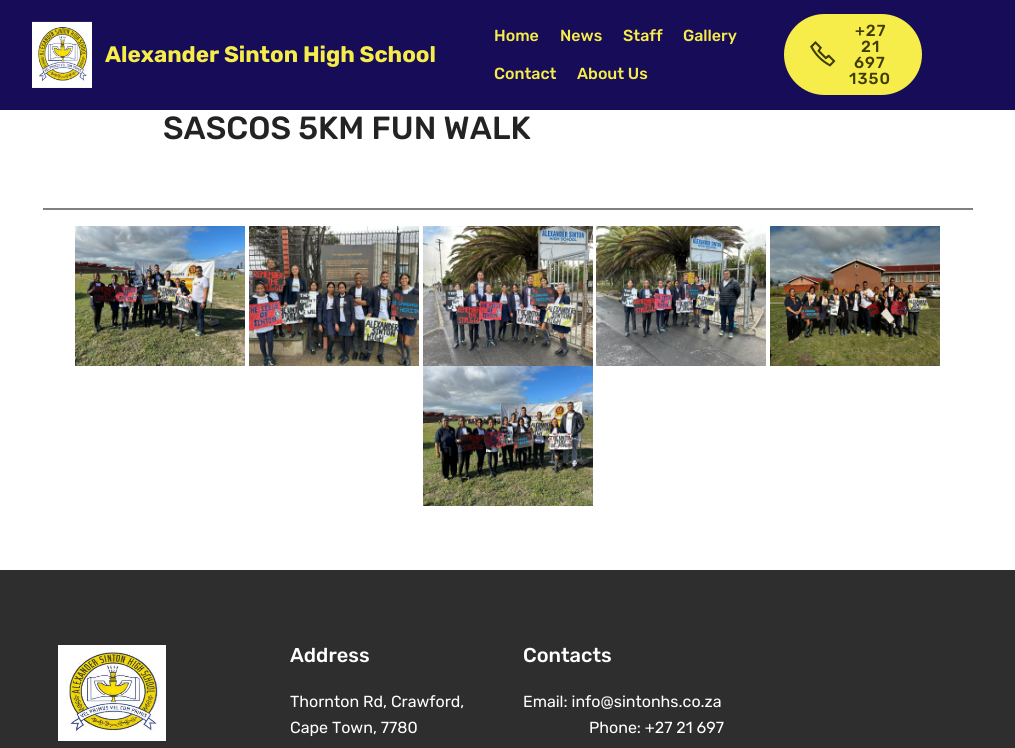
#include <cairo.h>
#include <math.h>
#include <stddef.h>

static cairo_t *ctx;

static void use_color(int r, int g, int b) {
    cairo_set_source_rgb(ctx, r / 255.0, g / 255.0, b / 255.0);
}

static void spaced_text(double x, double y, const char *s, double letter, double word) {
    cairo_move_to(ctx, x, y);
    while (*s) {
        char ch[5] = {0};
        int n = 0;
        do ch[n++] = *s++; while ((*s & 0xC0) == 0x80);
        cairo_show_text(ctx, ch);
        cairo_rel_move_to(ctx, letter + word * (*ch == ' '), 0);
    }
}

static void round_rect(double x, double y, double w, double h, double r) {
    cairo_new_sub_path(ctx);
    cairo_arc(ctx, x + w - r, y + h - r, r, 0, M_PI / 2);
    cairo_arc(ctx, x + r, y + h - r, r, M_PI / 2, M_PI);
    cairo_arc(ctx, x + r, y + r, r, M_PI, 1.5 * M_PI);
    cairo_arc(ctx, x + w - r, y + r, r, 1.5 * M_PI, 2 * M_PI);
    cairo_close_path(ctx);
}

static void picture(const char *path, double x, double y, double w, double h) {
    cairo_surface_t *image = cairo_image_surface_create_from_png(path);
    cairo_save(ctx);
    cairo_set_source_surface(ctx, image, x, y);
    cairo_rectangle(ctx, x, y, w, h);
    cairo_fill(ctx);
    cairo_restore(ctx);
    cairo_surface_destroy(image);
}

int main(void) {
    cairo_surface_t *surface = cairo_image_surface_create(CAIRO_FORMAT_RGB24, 1015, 748);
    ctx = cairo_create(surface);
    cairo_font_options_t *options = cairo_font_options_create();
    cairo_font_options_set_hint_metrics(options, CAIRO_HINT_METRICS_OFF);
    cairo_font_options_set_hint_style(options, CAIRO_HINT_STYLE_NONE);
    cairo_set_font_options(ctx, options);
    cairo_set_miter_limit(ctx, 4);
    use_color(255, 255, 255);
    cairo_paint(ctx);
    use_color(22, 12, 88);
    cairo_rectangle(ctx, 0, 0, 1015, 110);
    cairo_fill(ctx);
    picture("img1.png", 32, 21, 60, 67);
    cairo_select_font_face(ctx, "Rubik", CAIRO_FONT_SLANT_NORMAL, CAIRO_FONT_WEIGHT_BOLD);
    cairo_set_font_size(ctx, 22.4);
    use_color(247, 237, 74);
    cairo_move_to(ctx, 105, 62);
    cairo_show_text(ctx, "Alexander Sinton High School");
    cairo_select_font_face(ctx, "Rubik Medium", CAIRO_FONT_SLANT_NORMAL, CAIRO_FONT_WEIGHT_NORMAL);
    cairo_set_font_size(ctx, 16);
    cairo_move_to(ctx, 494, 41);
    cairo_show_text(ctx, "Home");
    cairo_move_to(ctx, 560, 41);
    cairo_show_text(ctx, "News");
    cairo_move_to(ctx, 623, 41);
    cairo_show_text(ctx, "Staff");
    cairo_move_to(ctx, 683, 41);
    cairo_show_text(ctx, "Gallery");
    cairo_move_to(ctx, 494, 79);
    cairo_show_text(ctx, "Contact");
    cairo_move_to(ctx, 577, 79);
    cairo_show_text(ctx, "About Us");
    round_rect(785, 15, 136, 79, 39.5);
    cairo_fill_preserve(ctx);
    cairo_stroke(ctx);
    use_color(63, 60, 3);
    spaced_text(855, 36, "+27", 1, 0);
    picture("img2.png", 810, 41, 26, 26);
    spaced_text(861, 52, "21", 1, 0);
    spaced_text(854, 68, "697", 1, 0);
    spaced_text(849, 84, "1350", 1, 0);
    cairo_set_font_size(ctx, 32);
    use_color(35, 35, 35);
    cairo_move_to(ctx, 163, 139);
    cairo_show_text(ctx, "SASCOS 5KM FUN WALK");
    use_color(128, 128, 128);
    cairo_rectangle(ctx, 43, 208, 930, 2);
    cairo_fill(ctx);
    picture("img3.png", 75, 226, 170, 140);
    picture("img4.png", 249, 226, 170, 140);
    picture("img5.png", 423, 226, 170, 140);
    picture("img6.png", 596, 226, 170, 140);
    picture("img7.png", 770, 226, 170, 140);
    picture("img8.png", 423, 366, 170, 140);
    use_color(46, 46, 46);
    cairo_rectangle(ctx, 0, 570, 1015, 178);
    cairo_fill(ctx);
    picture("img9.png", 58, 645, 108, 96);
    cairo_set_font_size(ctx, 20);
    use_color(255, 255, 255);
    cairo_move_to(ctx, 290, 662);
    cairo_show_text(ctx, "Address");
    cairo_select_font_face(ctx, "Rubik", CAIRO_FONT_SLANT_NORMAL, CAIRO_FONT_WEIGHT_NORMAL);
    cairo_set_font_size(ctx, 16);
    cairo_move_to(ctx, 290, 707);
    cairo_show_text(ctx, "Thornton Rd, Crawford,");
    cairo_move_to(ctx, 290, 733);
    cairo_show_text(ctx, "Cape Town, 7780");
    cairo_select_font_face(ctx, "Rubik Medium", CAIRO_FONT_SLANT_NORMAL, CAIRO_FONT_WEIGHT_NORMAL);
    cairo_set_font_size(ctx, 20);
    cairo_move_to(ctx, 523, 662);
    cairo_show_text(ctx, "Contacts");
    cairo_select_font_face(ctx, "Rubik", CAIRO_FONT_SLANT_NORMAL, CAIRO_FONT_WEIGHT_NORMAL);
    cairo_set_font_size(ctx, 16);
    cairo_move_to(ctx, 523, 707);
    cairo_show_text(ctx, "Email: info@sintonhs.co.za");
    cairo_move_to(ctx, 589, 733);
    cairo_show_text(ctx, "Phone: +27 21 697");
    cairo_surface_write_to_png(surface, "result.png");
    cairo_font_options_destroy(options);
    cairo_destroy(ctx);
    cairo_surface_destroy(surface);
    return 0;
}
